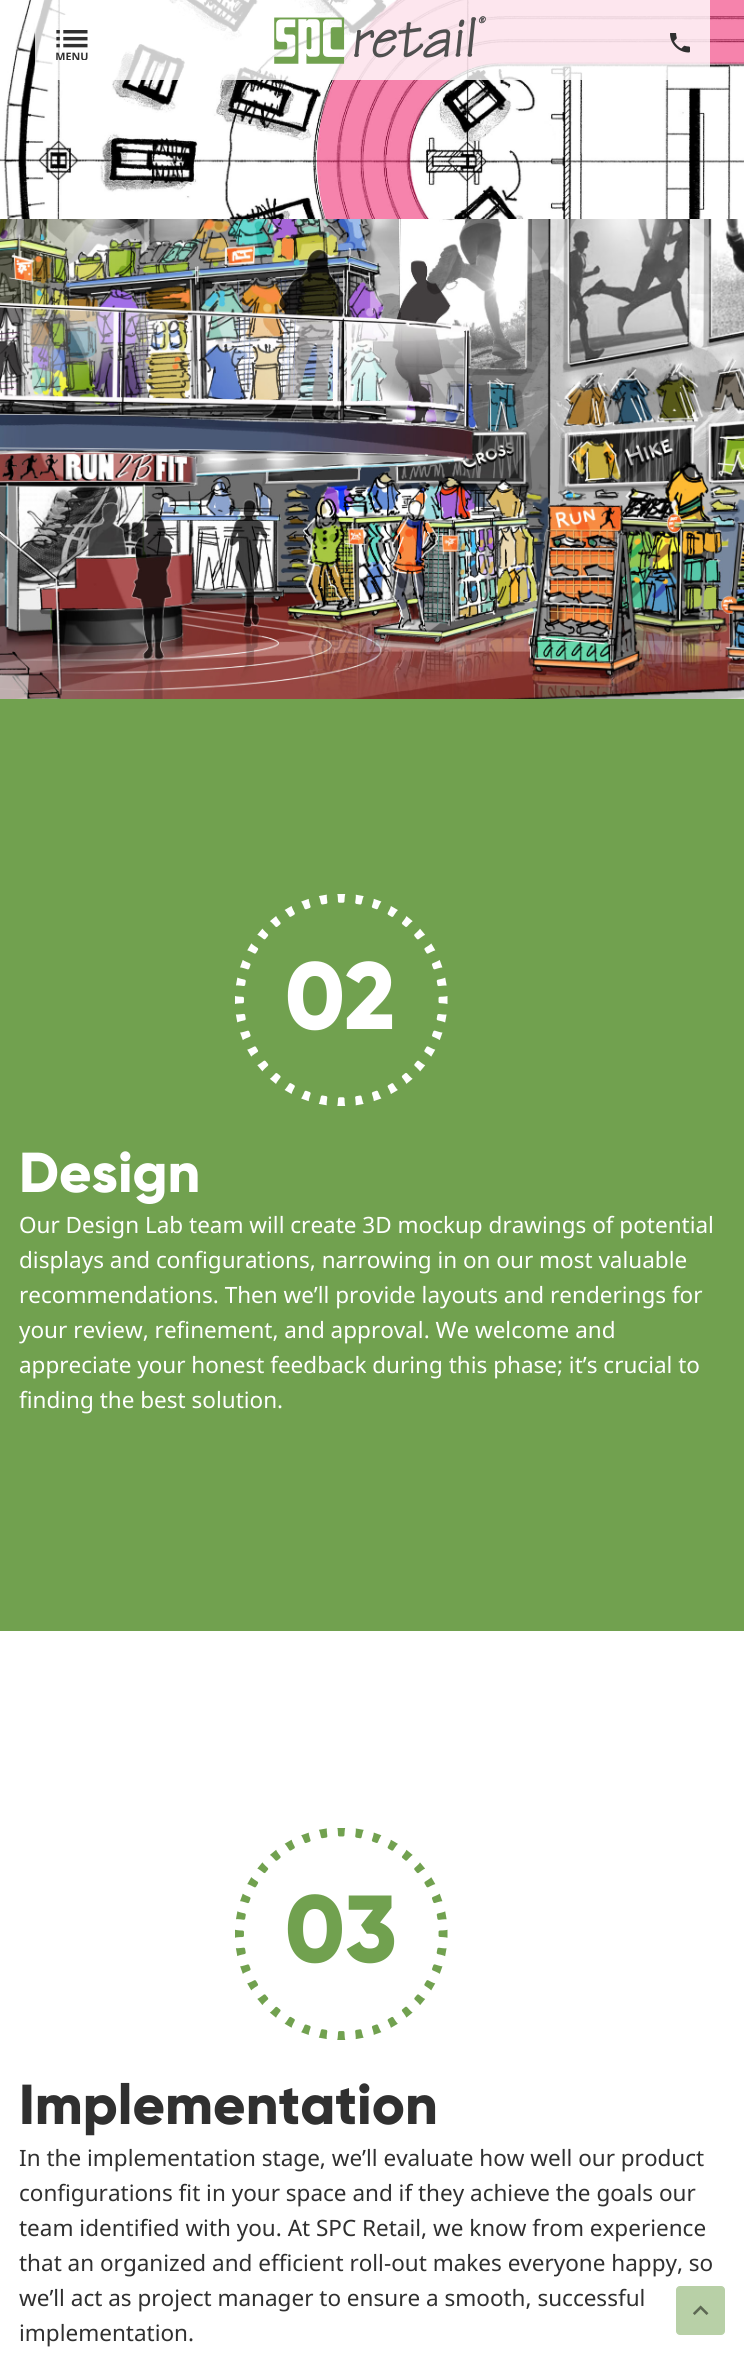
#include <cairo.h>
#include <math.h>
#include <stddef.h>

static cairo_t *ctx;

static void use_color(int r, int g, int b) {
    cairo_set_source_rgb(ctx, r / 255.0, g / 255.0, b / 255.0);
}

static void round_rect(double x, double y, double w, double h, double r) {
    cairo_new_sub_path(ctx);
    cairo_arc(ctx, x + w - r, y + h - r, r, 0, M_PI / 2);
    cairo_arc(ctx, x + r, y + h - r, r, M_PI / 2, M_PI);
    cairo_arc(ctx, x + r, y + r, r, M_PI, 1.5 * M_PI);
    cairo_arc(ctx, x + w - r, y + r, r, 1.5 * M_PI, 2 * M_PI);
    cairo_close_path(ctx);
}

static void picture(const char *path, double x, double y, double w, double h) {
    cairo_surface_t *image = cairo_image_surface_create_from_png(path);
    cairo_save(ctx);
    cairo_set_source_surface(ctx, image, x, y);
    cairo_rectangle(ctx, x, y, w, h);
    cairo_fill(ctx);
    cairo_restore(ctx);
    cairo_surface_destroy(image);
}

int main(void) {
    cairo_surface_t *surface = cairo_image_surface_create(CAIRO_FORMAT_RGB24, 744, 2355);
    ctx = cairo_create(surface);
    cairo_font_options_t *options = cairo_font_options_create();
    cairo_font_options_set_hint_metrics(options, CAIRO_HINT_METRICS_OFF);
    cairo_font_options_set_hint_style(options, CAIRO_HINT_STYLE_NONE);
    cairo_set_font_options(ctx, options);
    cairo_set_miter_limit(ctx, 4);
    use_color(255, 255, 255);
    cairo_paint(ctx);
    picture("img4.png", 0, 0, 744, 219);
    cairo_set_source_rgba(ctx, 1, 1, 1, 0.8);
    cairo_rectangle(ctx, 35, 0, 675, 80);
    cairo_fill(ctx);
    picture("img1.png", 56, 30, 32, 30);
    picture("img2.png", 274, 16, 212, 48);
    picture("img3.png", 670, 33, 20, 20);
    picture("img5.png", 0, 219, 744, 480);
    use_color(113, 161, 79);
    cairo_rectangle(ctx, 0, 699, 744, 932);
    cairo_fill(ctx);
    cairo_select_font_face(ctx, "Gilroy ExtraBold", CAIRO_FONT_SLANT_NORMAL, CAIRO_FONT_WEIGHT_NORMAL);
    cairo_set_font_size(ctx, 95);
    use_color(255, 255, 255);
    cairo_move_to(ctx, 285, 1029);
    cairo_show_text(ctx, "02");
    picture("img6.png", 235, 894, 213, 212);
    cairo_set_font_size(ctx, 56.25);
    cairo_move_to(ctx, 19, 1192);
    cairo_show_text(ctx, "Design");
    cairo_select_font_face(ctx, "Noto Sans", CAIRO_FONT_SLANT_NORMAL, CAIRO_FONT_WEIGHT_NORMAL);
    cairo_set_font_size(ctx, 22.5);
    cairo_move_to(ctx, 19, 1233);
    cairo_show_text(ctx, "Our Design Lab team will create 3D mockup drawings of potential");
    cairo_move_to(ctx, 19, 1268);
    cairo_show_text(ctx, "displays and configurations, narrowing in on our most valuable");
    cairo_move_to(ctx, 19, 1303);
    cairo_show_text(ctx, "recommendations. Then we’ll provide layouts and renderings for");
    cairo_move_to(ctx, 19, 1338);
    cairo_show_text(ctx, "your review, refinement, and approval. We welcome and");
    cairo_move_to(ctx, 19, 1373);
    cairo_show_text(ctx, "appreciate your honest feedback during this phase; it’s crucial to");
    cairo_move_to(ctx, 19, 1408);
    cairo_show_text(ctx, "finding the best solution.");
    cairo_select_font_face(ctx, "Gilroy ExtraBold", CAIRO_FONT_SLANT_NORMAL, CAIRO_FONT_WEIGHT_NORMAL);
    cairo_set_font_size(ctx, 95);
    use_color(113, 161, 79);
    cairo_move_to(ctx, 285, 1962);
    cairo_show_text(ctx, "03");
    picture("img7.png", 235, 1828, 213, 212);
    cairo_set_font_size(ctx, 56.25);
    use_color(48, 48, 48);
    cairo_move_to(ctx, 19, 2124);
    cairo_show_text(ctx, "Implementation");
    cairo_select_font_face(ctx, "Noto Sans", CAIRO_FONT_SLANT_NORMAL, CAIRO_FONT_WEIGHT_NORMAL);
    cairo_set_font_size(ctx, 22.5);
    cairo_move_to(ctx, 19, 2166);
    cairo_show_text(ctx, "In the implementation stage, we’ll evaluate how well our product");
    cairo_move_to(ctx, 19, 2201);
    cairo_show_text(ctx, "configurations fit in your space and if they achieve the goals our");
    cairo_move_to(ctx, 19, 2236);
    cairo_show_text(ctx, "team identified with you. At SPC Retail, we know from experience");
    cairo_move_to(ctx, 19, 2271);
    cairo_show_text(ctx, "that an organized and efficient roll-out makes everyone happy, so");
    cairo_move_to(ctx, 19, 2306);
    cairo_show_text(ctx, "we’ll act as project manager to ensure a smooth, successful");
    cairo_move_to(ctx, 19, 2341);
    cairo_show_text(ctx, "implementation.");
    use_color(184, 208, 167);
    round_rect(676.5, 2286.5, 48, 48, 3.5);
    cairo_fill_preserve(ctx);
    cairo_set_line_width(ctx, 1);
    cairo_stroke(ctx);
    picture("img8.png", 693, 2305, 16, 10);
    cairo_surface_write_to_png(surface, "result.png");
    cairo_font_options_destroy(options);
    cairo_destroy(ctx);
    cairo_surface_destroy(surface);
    return 0;
}
